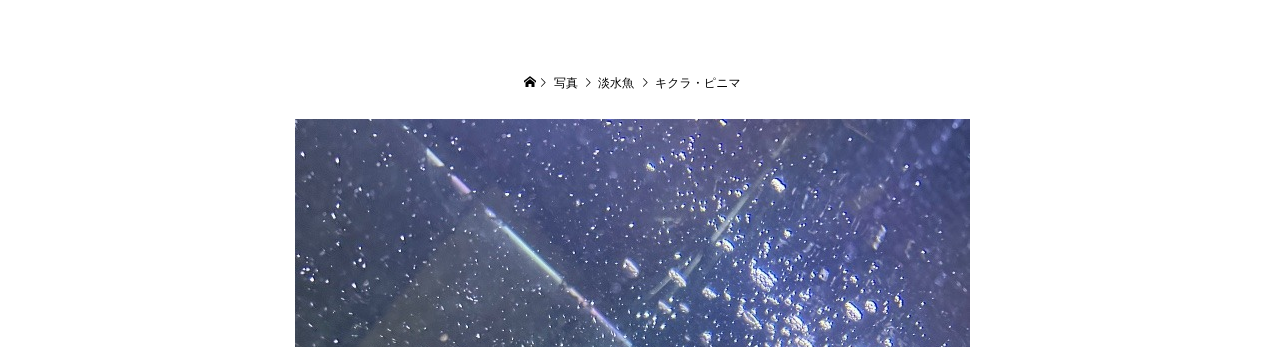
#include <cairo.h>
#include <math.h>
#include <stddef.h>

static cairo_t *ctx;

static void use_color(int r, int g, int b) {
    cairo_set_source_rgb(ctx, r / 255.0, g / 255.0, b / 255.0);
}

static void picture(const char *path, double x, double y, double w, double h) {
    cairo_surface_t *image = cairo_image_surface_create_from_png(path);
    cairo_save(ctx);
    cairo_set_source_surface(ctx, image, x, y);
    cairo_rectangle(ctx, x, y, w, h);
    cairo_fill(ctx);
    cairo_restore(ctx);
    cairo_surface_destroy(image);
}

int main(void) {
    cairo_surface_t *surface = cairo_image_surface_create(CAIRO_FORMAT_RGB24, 1265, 347);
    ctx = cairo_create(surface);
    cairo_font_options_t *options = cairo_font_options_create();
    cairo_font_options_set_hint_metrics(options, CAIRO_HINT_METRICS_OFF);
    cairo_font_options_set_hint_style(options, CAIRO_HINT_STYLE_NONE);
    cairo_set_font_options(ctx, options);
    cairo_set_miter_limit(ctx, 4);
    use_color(255, 255, 255);
    cairo_paint(ctx);
    picture("img1.png", 524, 76, 12, 11);
    picture("img2.png", 541, 78, 5, 9);
    cairo_select_font_face(ctx, "WenQuanYi Zen Hei Medium", CAIRO_FONT_SLANT_NORMAL, CAIRO_FONT_WEIGHT_NORMAL);
    cairo_set_font_size(ctx, 12);
    use_color(0, 0, 0);
    cairo_move_to(ctx, 554, 87);
    cairo_show_text(ctx, "写真");
    picture("img2.png", 586, 78, 5, 9);
    cairo_move_to(ctx, 598, 87);
    cairo_show_text(ctx, "淡水魚");
    picture("img2.png", 643, 78, 5, 9);
    cairo_move_to(ctx, 655, 87);
    cairo_show_text(ctx, "キクラ・ピニマ");
    picture("img3.png", 295, 119, 675, 228);
    cairo_surface_write_to_png(surface, "result.png");
    cairo_font_options_destroy(options);
    cairo_destroy(ctx);
    cairo_surface_destroy(surface);
    return 0;
}
